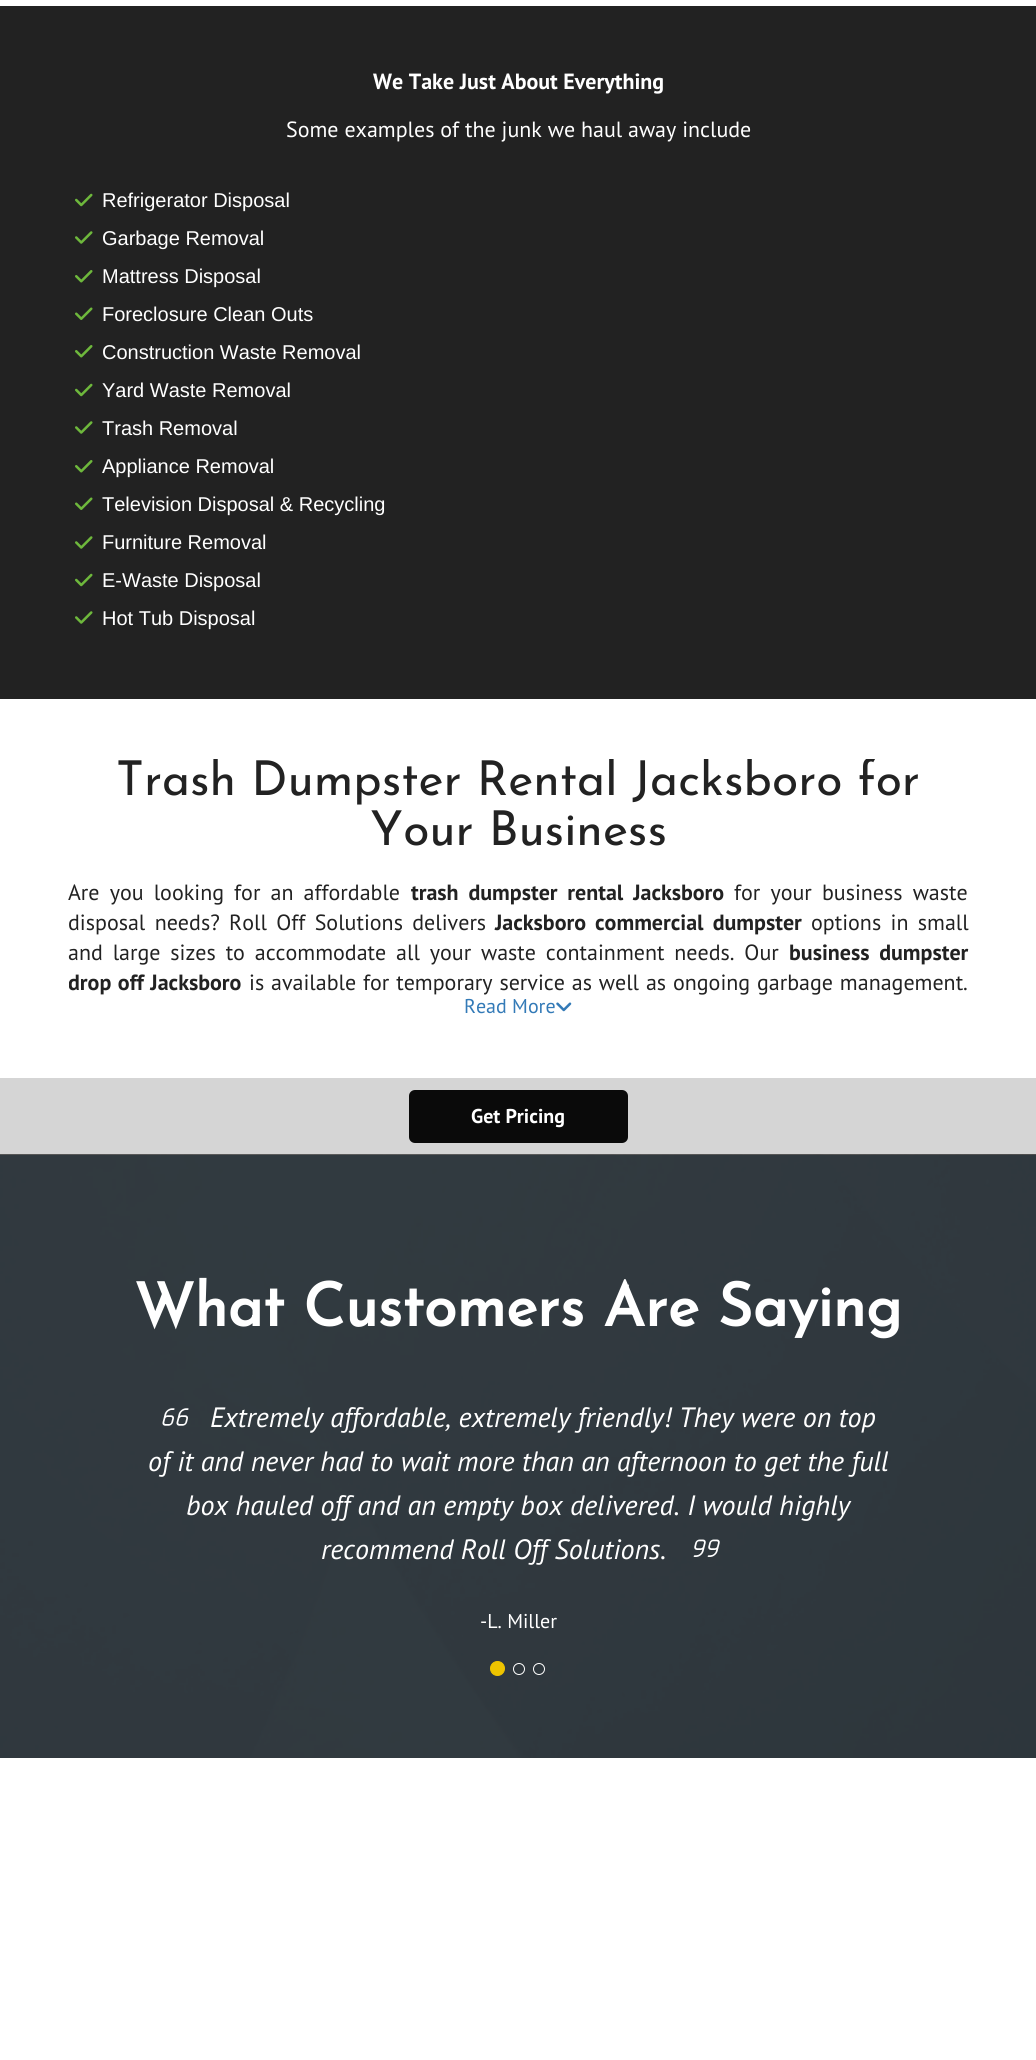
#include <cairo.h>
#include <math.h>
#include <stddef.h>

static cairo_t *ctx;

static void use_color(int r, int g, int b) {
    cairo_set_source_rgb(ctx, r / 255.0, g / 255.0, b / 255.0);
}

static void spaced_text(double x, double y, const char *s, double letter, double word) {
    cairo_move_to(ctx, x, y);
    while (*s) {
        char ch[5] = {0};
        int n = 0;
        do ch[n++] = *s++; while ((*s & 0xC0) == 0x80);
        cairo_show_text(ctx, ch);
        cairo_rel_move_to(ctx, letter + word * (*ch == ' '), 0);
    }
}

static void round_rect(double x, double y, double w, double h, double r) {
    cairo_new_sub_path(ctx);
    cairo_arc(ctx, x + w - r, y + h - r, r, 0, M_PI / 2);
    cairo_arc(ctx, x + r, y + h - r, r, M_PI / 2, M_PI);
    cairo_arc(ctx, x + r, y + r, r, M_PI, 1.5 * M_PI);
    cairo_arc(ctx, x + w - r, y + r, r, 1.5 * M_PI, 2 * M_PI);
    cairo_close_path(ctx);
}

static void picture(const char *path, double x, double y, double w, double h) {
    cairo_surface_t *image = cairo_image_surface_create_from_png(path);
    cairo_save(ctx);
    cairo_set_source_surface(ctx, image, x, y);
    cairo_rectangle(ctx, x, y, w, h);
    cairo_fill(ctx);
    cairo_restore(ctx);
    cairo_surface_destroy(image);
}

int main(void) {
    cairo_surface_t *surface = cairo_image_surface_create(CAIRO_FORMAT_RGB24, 1036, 2060);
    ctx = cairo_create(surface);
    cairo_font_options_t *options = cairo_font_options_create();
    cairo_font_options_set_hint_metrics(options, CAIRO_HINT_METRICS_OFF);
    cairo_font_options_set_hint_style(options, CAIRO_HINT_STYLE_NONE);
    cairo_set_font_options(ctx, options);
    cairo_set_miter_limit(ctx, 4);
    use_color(255, 255, 255);
    cairo_paint(ctx);
    use_color(34, 34, 34);
    cairo_rectangle(ctx, 0, 6, 1036, 693);
    cairo_fill(ctx);
    cairo_select_font_face(ctx, "PT Sans", CAIRO_FONT_SLANT_NORMAL, CAIRO_FONT_WEIGHT_BOLD);
    cairo_set_font_size(ctx, 22);
    use_color(255, 255, 255);
    cairo_move_to(ctx, 373, 89);
    cairo_show_text(ctx, "We Take Just About Everything");
    cairo_select_font_face(ctx, "PT Sans", CAIRO_FONT_SLANT_NORMAL, CAIRO_FONT_WEIGHT_NORMAL);
    cairo_move_to(ctx, 286, 137);
    cairo_show_text(ctx, "Some examples of the junk we haul away include");
    picture("img1.png", 75, 193, 18, 14);
    cairo_select_font_face(ctx, "Liberation Sans", CAIRO_FONT_SLANT_NORMAL, CAIRO_FONT_WEIGHT_NORMAL);
    cairo_set_font_size(ctx, 20);
    cairo_move_to(ctx, 102, 207);
    cairo_show_text(ctx, "Refrigerator Disposal");
    picture("img2.png", 75, 231, 18, 13);
    cairo_move_to(ctx, 102, 245);
    cairo_show_text(ctx, "Garbage Removal");
    picture("img3.png", 75, 270, 18, 13);
    cairo_move_to(ctx, 102, 283);
    cairo_show_text(ctx, "Mattress Disposal");
    picture("img4.png", 75, 307, 18, 13);
    cairo_move_to(ctx, 102, 321);
    cairo_show_text(ctx, "Foreclosure Clean Outs");
    picture("img3.png", 75, 345, 18, 13);
    cairo_move_to(ctx, 102, 359);
    cairo_show_text(ctx, "Construction Waste Removal");
    picture("img1.png", 75, 383, 18, 14);
    cairo_move_to(ctx, 102, 397);
    cairo_show_text(ctx, "Yard Waste Removal");
    picture("img2.png", 75, 421, 18, 13);
    cairo_move_to(ctx, 102, 435);
    cairo_show_text(ctx, "Trash Removal");
    picture("img3.png", 75, 460, 18, 13);
    cairo_move_to(ctx, 102, 473);
    cairo_show_text(ctx, "Appliance Removal");
    picture("img4.png", 75, 497, 18, 13);
    cairo_move_to(ctx, 102, 511);
    cairo_show_text(ctx, "Television Disposal & Recycling");
    picture("img2.png", 75, 536, 18, 13);
    cairo_move_to(ctx, 102, 549);
    cairo_show_text(ctx, "Furniture Removal");
    picture("img1.png", 75, 573, 18, 14);
    cairo_move_to(ctx, 102, 587);
    cairo_show_text(ctx, "E-Waste Disposal");
    picture("img2.png", 75, 611, 18, 13);
    cairo_move_to(ctx, 102, 625);
    cairo_show_text(ctx, "Hot Tub Disposal");
    cairo_save(ctx);
    cairo_rectangle(ctx, 69, 759, 900, 237);
    cairo_clip(ctx);
    cairo_select_font_face(ctx, "Josefin Sans Thin", CAIRO_FONT_SLANT_NORMAL, CAIRO_FONT_WEIGHT_NORMAL);
    cairo_set_font_size(ctx, 48);
    use_color(34, 34, 34);
    cairo_move_to(ctx, 116, 795);
    cairo_show_text(ctx, "Trash Dumpster Rental Jacksboro for");
    cairo_restore(ctx);
    cairo_select_font_face(ctx, "Josefin Sans Thin", CAIRO_FONT_SLANT_NORMAL, CAIRO_FONT_WEIGHT_NORMAL);
    cairo_set_font_size(ctx, 48);
    use_color(34, 34, 34);
    cairo_move_to(ctx, 370, 845);
    cairo_show_text(ctx, "Your Business");
    cairo_select_font_face(ctx, "PT Sans", CAIRO_FONT_SLANT_NORMAL, CAIRO_FONT_WEIGHT_NORMAL);
    cairo_set_font_size(ctx, 22);
    spaced_text(68, 900, "Are you looking for an affordable", 0, 4.25);
    cairo_select_font_face(ctx, "PT Sans", CAIRO_FONT_SLANT_NORMAL, CAIRO_FONT_WEIGHT_BOLD);
    spaced_text(411, 900, "trash dumpster rental Jacksboro", 0, 4.25);
    cairo_select_font_face(ctx, "PT Sans", CAIRO_FONT_SLANT_NORMAL, CAIRO_FONT_WEIGHT_NORMAL);
    spaced_text(734, 900, "for your business waste", 0, 4.25);
    spaced_text(68, 930, "disposal needs? Roll Off Solutions delivers", 0, 3.5);
    cairo_select_font_face(ctx, "PT Sans", CAIRO_FONT_SLANT_NORMAL, CAIRO_FONT_WEIGHT_BOLD);
    spaced_text(495, 930, "Jacksboro commercial dumpster", 0, 3.5);
    cairo_select_font_face(ctx, "PT Sans", CAIRO_FONT_SLANT_NORMAL, CAIRO_FONT_WEIGHT_NORMAL);
    spaced_text(811, 930, "options in small", 0, 3.5);
    spaced_text(68, 960, "and large sizes to accommodate all your waste containment needs. Our", 0, 4);
    cairo_select_font_face(ctx, "PT Sans", CAIRO_FONT_SLANT_NORMAL, CAIRO_FONT_WEIGHT_BOLD);
    spaced_text(789, 960, "business dumpster", 0, 4);
    cairo_save(ctx);
    cairo_rectangle(ctx, 69, 759, 900, 237);
    cairo_clip(ctx);
    spaced_text(68, 990, "drop off Jacksboro", 0, 1);
    cairo_restore(ctx);
    cairo_select_font_face(ctx, "PT Sans", CAIRO_FONT_SLANT_NORMAL, CAIRO_FONT_WEIGHT_NORMAL);
    spaced_text(249, 990, "is available for temporary service as well as ongoing garbage management.", 0, 1);
    cairo_set_font_size(ctx, 20);
    use_color(51, 122, 183);
    cairo_move_to(ctx, 464, 1013);
    cairo_show_text(ctx, "Read More");
    picture("img5.png", 556, 1002, 16, 10);
    use_color(213, 213, 213);
    cairo_rectangle(ctx, 0, 1078, 1036, 76);
    cairo_fill(ctx);
    use_color(10, 10, 10);
    round_rect(409, 1090, 219, 53, 6);
    cairo_fill(ctx);
    cairo_select_font_face(ctx, "PT Sans", CAIRO_FONT_SLANT_NORMAL, CAIRO_FONT_WEIGHT_BOLD);
    use_color(255, 255, 255);
    cairo_move_to(ctx, 471, 1123);
    cairo_show_text(ctx, "Get Pricing");
    picture("img6.png", 0, 1154, 1036, 604);
    cairo_select_font_face(ctx, "Josefin Sans", CAIRO_FONT_SLANT_NORMAL, CAIRO_FONT_WEIGHT_BOLD);
    cairo_set_font_size(ctx, 60);
    cairo_move_to(ctx, 134, 1326);
    cairo_show_text(ctx, "What Customers Are Saying");
    picture("img7.png", 162, 1408, 27, 18);
    cairo_select_font_face(ctx, "PT Sans", CAIRO_FONT_SLANT_ITALIC, CAIRO_FONT_WEIGHT_NORMAL);
    cairo_set_font_size(ctx, 28);
    cairo_move_to(ctx, 210, 1427);
    cairo_show_text(ctx, "Extremely affordable, extremely friendly! They were on top");
    cairo_move_to(ctx, 148, 1471);
    cairo_show_text(ctx, "of it and never had to wait more than an afternoon to get the full");
    cairo_move_to(ctx, 186, 1515);
    cairo_show_text(ctx, "box hauled off and an empty box delivered. I would highly");
    cairo_move_to(ctx, 321, 1559);
    cairo_show_text(ctx, "recommend Roll Off Solutions.");
    picture("img8.png", 693, 1539, 27, 18);
    cairo_select_font_face(ctx, "PT Sans", CAIRO_FONT_SLANT_NORMAL, CAIRO_FONT_WEIGHT_NORMAL);
    cairo_set_font_size(ctx, 20);
    cairo_move_to(ctx, 480, 1628);
    cairo_show_text(ctx, "-L. Miller");
    use_color(238, 196, 0);
    cairo_new_path(ctx);
    cairo_arc(ctx, 497.5, 1668.5, 7, 0, 2 * M_PI);
    cairo_fill_preserve(ctx);
    cairo_set_line_width(ctx, 1);
    cairo_stroke(ctx);
    cairo_arc(ctx, 519, 1669, 5.5, 0, 2 * M_PI);
    use_color(255, 255, 255);
    cairo_stroke(ctx);
    cairo_arc(ctx, 539, 1669, 5.5, 0, 2 * M_PI);
    cairo_stroke(ctx);
    cairo_surface_write_to_png(surface, "result.png");
    cairo_font_options_destroy(options);
    cairo_destroy(ctx);
    cairo_surface_destroy(surface);
    return 0;
}
